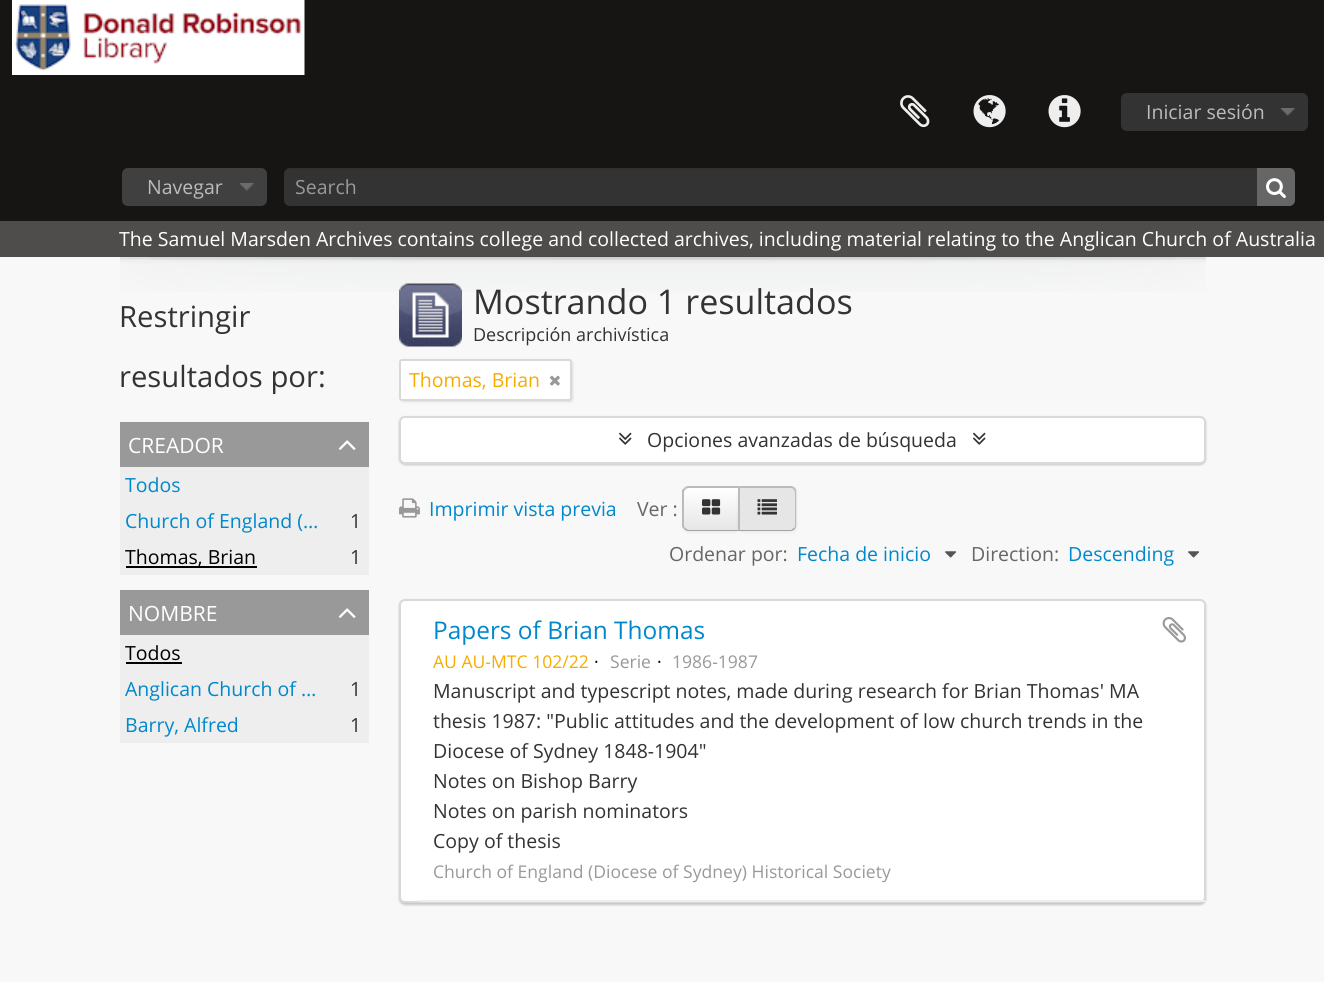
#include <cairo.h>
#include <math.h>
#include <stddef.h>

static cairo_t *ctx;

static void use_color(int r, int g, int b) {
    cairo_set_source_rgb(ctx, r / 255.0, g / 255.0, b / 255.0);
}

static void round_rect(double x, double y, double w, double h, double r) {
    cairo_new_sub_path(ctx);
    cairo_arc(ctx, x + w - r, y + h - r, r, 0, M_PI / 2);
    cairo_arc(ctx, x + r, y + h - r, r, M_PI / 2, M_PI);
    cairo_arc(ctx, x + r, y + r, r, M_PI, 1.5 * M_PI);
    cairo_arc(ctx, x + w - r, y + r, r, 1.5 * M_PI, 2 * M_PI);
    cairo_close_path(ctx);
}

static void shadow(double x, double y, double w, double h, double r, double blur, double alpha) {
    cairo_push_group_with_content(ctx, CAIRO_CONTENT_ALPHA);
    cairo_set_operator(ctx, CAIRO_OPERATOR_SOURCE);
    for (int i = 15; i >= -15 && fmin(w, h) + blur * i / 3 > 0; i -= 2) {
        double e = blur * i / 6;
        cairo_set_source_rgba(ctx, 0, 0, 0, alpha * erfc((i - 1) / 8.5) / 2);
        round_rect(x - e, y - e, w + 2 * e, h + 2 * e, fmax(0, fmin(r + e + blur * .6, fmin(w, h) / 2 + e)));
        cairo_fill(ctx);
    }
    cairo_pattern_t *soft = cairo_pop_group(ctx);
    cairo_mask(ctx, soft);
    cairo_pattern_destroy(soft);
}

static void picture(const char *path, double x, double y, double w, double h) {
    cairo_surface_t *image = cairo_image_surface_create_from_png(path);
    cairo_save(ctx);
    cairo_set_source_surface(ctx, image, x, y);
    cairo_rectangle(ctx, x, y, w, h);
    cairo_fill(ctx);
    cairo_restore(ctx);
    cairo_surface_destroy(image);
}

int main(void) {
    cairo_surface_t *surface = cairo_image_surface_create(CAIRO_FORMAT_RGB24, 1324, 982);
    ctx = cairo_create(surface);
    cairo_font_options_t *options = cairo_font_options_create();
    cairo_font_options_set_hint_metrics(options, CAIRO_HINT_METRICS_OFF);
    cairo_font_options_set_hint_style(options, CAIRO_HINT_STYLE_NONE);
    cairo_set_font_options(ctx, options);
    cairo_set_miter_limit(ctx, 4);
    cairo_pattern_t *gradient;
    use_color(248, 248, 248);
    cairo_paint(ctx);
    use_color(22, 21, 20);
    cairo_rectangle(ctx, 0, 0, 1324, 221);
    cairo_fill(ctx);
    picture("img1.png", 12, 0, 293, 75);
    picture("img2.png", 900, 95, 30, 33);
    picture("img3.png", 973, 95, 33, 33);
    picture("img4.png", 1048, 95, 33, 33);
    use_color(51, 51, 51);
    round_rect(1121, 93, 187, 38, 6);
    cairo_fill(ctx);
    picture("img5.png", 1281, 108, 14, 8);
    cairo_select_font_face(ctx, "Open Sans", CAIRO_FONT_SLANT_NORMAL, CAIRO_FONT_WEIGHT_NORMAL);
    cairo_set_font_size(ctx, 19.5);
    use_color(187, 187, 187);
    cairo_move_to(ctx, 1146, 119);
    cairo_show_text(ctx, "Iniciar sesión");
    use_color(64, 64, 64);
    round_rect(122, 168, 145, 38, 6);
    cairo_fill(ctx);
    picture("img6.png", 240, 183, 14, 8);
    use_color(187, 187, 187);
    cairo_move_to(ctx, 147, 194);
    cairo_show_text(ctx, "Navegar");
    use_color(51, 51, 51);
    round_rect(284, 168, 1011, 38, 6);
    cairo_fill(ctx);
    cairo_set_source_rgba(ctx, 0, 0, 0, 0.07);
    cairo_new_path(ctx);
    cairo_move_to(ctx, 290, 170);
    cairo_line_to(ctx, 1288, 170);
    cairo_curve_to(ctx, 1292, 170, 1294, 172, 1294, 176);
    cairo_line_to(ctx, 1294, 201);
    cairo_curve_to(ctx, 1294, 202, 1294, 203, 1293, 204);
    cairo_curve_to(ctx, 1294, 203, 1295, 202, 1295, 200);
    cairo_line_to(ctx, 1295, 174);
    cairo_curve_to(ctx, 1295, 171, 1292, 168, 1289, 168);
    cairo_line_to(ctx, 290, 168);
    cairo_curve_to(ctx, 287, 168, 284, 171, 284, 174);
    cairo_line_to(ctx, 284, 176);
    cairo_curve_to(ctx, 284, 172, 286, 170, 290, 170);
    cairo_close_path(ctx);
    cairo_fill(ctx);
    use_color(153, 153, 153);
    cairo_move_to(ctx, 295, 194);
    cairo_show_text(ctx, "Search");
    use_color(102, 102, 102);
    cairo_new_path(ctx);
    cairo_move_to(ctx, 1257, 168);
    cairo_line_to(ctx, 1289, 168);
    cairo_curve_to(ctx, 1292.5, 168, 1295, 170.5, 1295, 174);
    cairo_line_to(ctx, 1295, 200);
    cairo_curve_to(ctx, 1295, 203.5, 1292.5, 206, 1289, 206);
    cairo_line_to(ctx, 1257, 206);
    cairo_close_path(ctx);
    cairo_fill(ctx);
    picture("img7.png", 1266, 178, 20, 20);
    picture("img8.png", 120, 256, 1086, 36);
    cairo_set_source_rgba(ctx, 0.086, 0.082, 0.078, 0.75);
    cairo_rectangle(ctx, 0, 221, 1324, 36);
    cairo_fill(ctx);
    use_color(255, 255, 255);
    cairo_move_to(ctx, 119, 246);
    cairo_show_text(ctx, "The Samuel Marsden Archives contains college and collected archives, including material relating to the Anglican Church of Australia");
    cairo_set_font_size(ctx, 29.25);
    use_color(51, 51, 51);
    cairo_move_to(ctx, 119, 327);
    cairo_show_text(ctx, "Restringir");
    cairo_move_to(ctx, 119, 387);
    cairo_show_text(ctx, "resultados por:");
    use_color(153, 153, 153);
    cairo_rectangle(ctx, 120, 422, 249, 45);
    cairo_fill(ctx);
    cairo_set_font_size(ctx, 21);
    use_color(255, 255, 255);
    cairo_move_to(ctx, 128, 453);
    cairo_show_text(ctx, "CREADOR");
    picture("img9.png", 338, 440, 18, 10);
    use_color(238, 238, 238);
    cairo_rectangle(ctx, 120, 467, 249, 108);
    cairo_fill(ctx);
    cairo_set_font_size(ctx, 19.5);
    use_color(0, 136, 204);
    cairo_move_to(ctx, 125, 492);
    cairo_show_text(ctx, "Todos");
    cairo_move_to(ctx, 125, 528);
    cairo_show_text(ctx, "Church of England (…");
    use_color(51, 51, 51);
    cairo_move_to(ctx, 350, 528);
    cairo_show_text(ctx, "1");
    use_color(0, 0, 0);
    cairo_rectangle(ctx, 126, 566, 131, 2);
    cairo_fill(ctx);
    cairo_move_to(ctx, 125, 564);
    cairo_show_text(ctx, "Thomas, Brian");
    use_color(51, 51, 51);
    cairo_move_to(ctx, 350, 564);
    cairo_show_text(ctx, "1");
    use_color(153, 153, 153);
    cairo_rectangle(ctx, 120, 590, 249, 45);
    cairo_fill(ctx);
    cairo_set_font_size(ctx, 21);
    use_color(255, 255, 255);
    cairo_move_to(ctx, 128, 621);
    cairo_show_text(ctx, "NOMBRE");
    picture("img9.png", 338, 608, 18, 10);
    use_color(238, 238, 238);
    cairo_rectangle(ctx, 120, 635, 249, 108);
    cairo_fill(ctx);
    cairo_set_font_size(ctx, 19.5);
    use_color(0, 0, 0);
    cairo_move_to(ctx, 125, 660);
    cairo_show_text(ctx, "Todos");
    cairo_rectangle(ctx, 126, 662, 56, 2);
    cairo_fill(ctx);
    use_color(0, 136, 204);
    cairo_move_to(ctx, 125, 696);
    cairo_show_text(ctx, "Anglican Church of …");
    use_color(51, 51, 51);
    cairo_move_to(ctx, 350, 696);
    cairo_show_text(ctx, "1");
    use_color(0, 136, 204);
    cairo_move_to(ctx, 125, 732);
    cairo_show_text(ctx, "Barry, Alfred");
    use_color(51, 51, 51);
    cairo_move_to(ctx, 350, 732);
    cairo_show_text(ctx, "1");
    picture("img10.png", 399, 283, 63, 64);
    cairo_set_font_size(ctx, 34.1);
    cairo_move_to(ctx, 473, 314);
    cairo_show_text(ctx, "Mostrando 1 resultados");
    cairo_set_font_size(ctx, 18);
    cairo_move_to(ctx, 473, 341);
    cairo_show_text(ctx, "Descripción archivística");
    use_color(0, 0, 0);
    shadow(401, 360, 172, 42, 3, 1, 0.1);
    use_color(255, 255, 255);
    round_rect(400, 360, 171, 40, 2);
    cairo_fill_preserve(ctx);
    use_color(217, 217, 217);
    cairo_stroke(ctx);
    cairo_set_font_size(ctx, 19.5);
    use_color(246, 172, 0);
    cairo_move_to(ctx, 409, 387);
    cairo_show_text(ctx, "Thomas, Brian");
    picture("img11.png", 550, 375, 10, 11);
    use_color(0, 0, 0);
    shadow(399, 417, 807, 48, 6, 1, 0.2);
    use_color(255, 255, 255);
    round_rect(400, 417, 805, 46, 5);
    cairo_fill_preserve(ctx);
    use_color(217, 217, 217);
    cairo_stroke(ctx);
    picture("img12.png", 619, 432, 13, 13);
    use_color(51, 51, 51);
    cairo_move_to(ctx, 647, 447);
    cairo_show_text(ctx, "Opciones avanzadas de búsqueda");
    picture("img12.png", 973, 432, 13, 13);
    picture("img13.png", 399, 498, 21, 20);
    use_color(0, 136, 204);
    cairo_move_to(ctx, 429, 516);
    cairo_show_text(ctx, "Imprimir vista previa");
    use_color(102, 102, 102);
    cairo_move_to(ctx, 637, 516);
    cairo_show_text(ctx, "Ver :");
    use_color(0, 0, 0);
    shadow(683, 488, 57, 45, 6, 1.5, 0.05);
    cairo_save(ctx);
    cairo_new_path(ctx);
    cairo_move_to(ctx, 689, 486);
    cairo_line_to(ctx, 740, 486);
    cairo_line_to(ctx, 740, 531);
    cairo_line_to(ctx, 689, 531);
    cairo_curve_to(ctx, 685.5, 531, 683, 528.5, 683, 525);
    cairo_line_to(ctx, 683, 492);
    cairo_curve_to(ctx, 683, 488.5, 685.5, 486, 689, 486);
    cairo_close_path(ctx);
    cairo_clip(ctx);
    gradient = cairo_pattern_create_linear(711, 488, 711, 530);
    cairo_pattern_add_color_stop_rgba(gradient, 0, 1, 1, 1, 1);
    cairo_pattern_add_color_stop_rgba(gradient, 1, 0.902, 0.902, 0.902, 1);
    cairo_set_source(ctx, gradient);
    cairo_pattern_destroy(gradient);
    cairo_rectangle(ctx, 683, 488, 55, 42);
    cairo_fill(ctx);
    cairo_restore(ctx);
    use_color(187, 187, 187);
    cairo_new_path(ctx);
    cairo_move_to(ctx, 688, 486);
    cairo_curve_to(ctx, 687, 486, 685, 487, 684, 488);
    cairo_line_to(ctx, 686, 489);
    cairo_line_to(ctx, 688, 488);
    cairo_line_to(ctx, 738, 488);
    cairo_line_to(ctx, 740, 486);
    cairo_close_path(ctx);
    cairo_fill(ctx);
    use_color(162, 162, 162);
    cairo_new_path(ctx);
    cairo_move_to(ctx, 740, 531);
    cairo_line_to(ctx, 738, 530);
    cairo_line_to(ctx, 688, 530);
    cairo_line_to(ctx, 685, 528);
    cairo_line_to(ctx, 684, 529);
    cairo_curve_to(ctx, 685, 530, 687, 531, 688, 531);
    cairo_close_path(ctx);
    cairo_fill(ctx);
    use_color(187, 187, 187);
    cairo_new_path(ctx);
    cairo_move_to(ctx, 682, 490);
    cairo_line_to(ctx, 684, 488);
    cairo_line_to(ctx, 686, 489);
    cairo_curve_to(ctx, 685, 490, 684, 491, 684, 492);
    cairo_line_to(ctx, 684, 525);
    cairo_curve_to(ctx, 684, 526, 684, 527, 685, 528);
    cairo_line_to(ctx, 684, 529);
    cairo_line_to(ctx, 682, 527);
    cairo_close_path(ctx);
    cairo_fill(ctx);
    picture("img14.png", 702, 499, 19, 16);
    use_color(0, 0, 0);
    shadow(738, 488, 59, 45, 6, 1.5, 0.05);
    use_color(230, 230, 230);
    cairo_new_path(ctx);
    cairo_move_to(ctx, 738, 486);
    cairo_line_to(ctx, 791, 486);
    cairo_curve_to(ctx, 794.5, 486, 797, 488.5, 797, 492);
    cairo_line_to(ctx, 797, 525);
    cairo_curve_to(ctx, 797, 528.5, 794.5, 531, 791, 531);
    cairo_line_to(ctx, 738, 531);
    cairo_close_path(ctx);
    cairo_fill(ctx);
    use_color(187, 187, 187);
    cairo_new_path(ctx);
    cairo_move_to(ctx, 738, 486);
    cairo_line_to(ctx, 740, 488);
    cairo_line_to(ctx, 790, 488);
    cairo_curve_to(ctx, 791, 488, 793, 488, 793, 489);
    cairo_line_to(ctx, 795, 488);
    cairo_curve_to(ctx, 794, 487, 792, 486, 790, 486);
    cairo_close_path(ctx);
    cairo_fill(ctx);
    cairo_new_path(ctx);
    cairo_move_to(ctx, 795, 488);
    cairo_curve_to(ctx, 796, 489, 796, 491, 796, 492);
    cairo_line_to(ctx, 796, 525);
    cairo_curve_to(ctx, 796, 526, 796, 528, 795, 529);
    cairo_line_to(ctx, 794, 528);
    cairo_curve_to(ctx, 795, 527, 795, 526, 795, 525);
    cairo_line_to(ctx, 795, 492);
    cairo_curve_to(ctx, 795, 491, 794, 490, 793, 489);
    cairo_close_path(ctx);
    cairo_fill(ctx);
    use_color(162, 162, 162);
    cairo_new_path(ctx);
    cairo_move_to(ctx, 790, 531);
    cairo_curve_to(ctx, 792, 531, 794, 530, 795, 529);
    cairo_line_to(ctx, 794, 528);
    cairo_line_to(ctx, 791, 530);
    cairo_line_to(ctx, 740, 530);
    cairo_line_to(ctx, 740, 529);
    cairo_line_to(ctx, 738, 531);
    cairo_close_path(ctx);
    cairo_fill(ctx);
    use_color(187, 187, 187);
    cairo_new_path(ctx);
    cairo_move_to(ctx, 738, 486);
    cairo_line_to(ctx, 738, 531);
    cairo_line_to(ctx, 740, 529);
    cairo_line_to(ctx, 740, 488);
    cairo_close_path(ctx);
    cairo_fill(ctx);
    picture("img15.png", 757, 499, 20, 16);
    use_color(102, 102, 102);
    cairo_move_to(ctx, 669, 561);
    cairo_show_text(ctx, "Ordenar por:");
    use_color(0, 136, 204);
    cairo_move_to(ctx, 797, 561);
    cairo_show_text(ctx, "Fecha de inicio");
    picture("img16.png", 945, 551, 12, 7);
    use_color(102, 102, 102);
    cairo_move_to(ctx, 971, 561);
    cairo_show_text(ctx, "Direction:");
    use_color(0, 136, 204);
    cairo_move_to(ctx, 1068, 561);
    cairo_show_text(ctx, "Descending");
    picture("img16.png", 1188, 551, 12, 7);
    use_color(0, 0, 0);
    shadow(399, 600, 807, 305, 6, 1, 0.2);
    use_color(255, 255, 255);
    round_rect(400, 600, 805, 302, 5);
    cairo_fill_preserve(ctx);
    use_color(217, 217, 217);
    cairo_stroke(ctx);
    use_color(238, 238, 238);
    cairo_rectangle(ctx, 419, 900, 786, 2);
    cairo_fill(ctx);
    cairo_set_font_size(ctx, 24.4);
    use_color(0, 136, 204);
    cairo_move_to(ctx, 433, 639);
    cairo_show_text(ctx, "Papers of Brian Thomas");
    picture("img17.png", 1162, 617, 24, 26);
    cairo_set_font_size(ctx, 17.55);
    use_color(246, 172, 0);
    cairo_move_to(ctx, 433, 668);
    cairo_show_text(ctx, "AU AU-MTC 102/22");
    use_color(0, 0, 0);
    cairo_move_to(ctx, 594, 668);
    cairo_show_text(ctx, "·");
    use_color(153, 153, 153);
    cairo_move_to(ctx, 610, 668);
    cairo_show_text(ctx, "Serie");
    use_color(0, 0, 0);
    cairo_move_to(ctx, 657, 668);
    cairo_show_text(ctx, "·");
    use_color(153, 153, 153);
    cairo_move_to(ctx, 672, 668);
    cairo_show_text(ctx, "1986-1987");
    cairo_set_font_size(ctx, 19.5);
    use_color(51, 51, 51);
    cairo_move_to(ctx, 433, 698);
    cairo_show_text(ctx, "Manuscript and typescript notes, made during research for Brian Thomas' MA");
    cairo_move_to(ctx, 433, 728);
    cairo_show_text(ctx, "thesis 1987: \"Public attitudes and the development of low church trends in the");
    cairo_move_to(ctx, 433, 758);
    cairo_show_text(ctx, "Diocese of Sydney 1848-1904\"");
    cairo_move_to(ctx, 433, 788);
    cairo_show_text(ctx, "Notes on Bishop Barry");
    cairo_move_to(ctx, 433, 818);
    cairo_show_text(ctx, "Notes on parish nominators");
    cairo_move_to(ctx, 433, 848);
    cairo_show_text(ctx, "Copy of thesis");
    cairo_set_font_size(ctx, 17.55);
    use_color(153, 153, 153);
    cairo_move_to(ctx, 433, 878);
    cairo_show_text(ctx, "Church of England (Diocese of Sydney) Historical Society");
    cairo_surface_write_to_png(surface, "result.png");
    cairo_font_options_destroy(options);
    cairo_destroy(ctx);
    cairo_surface_destroy(surface);
    return 0;
}
